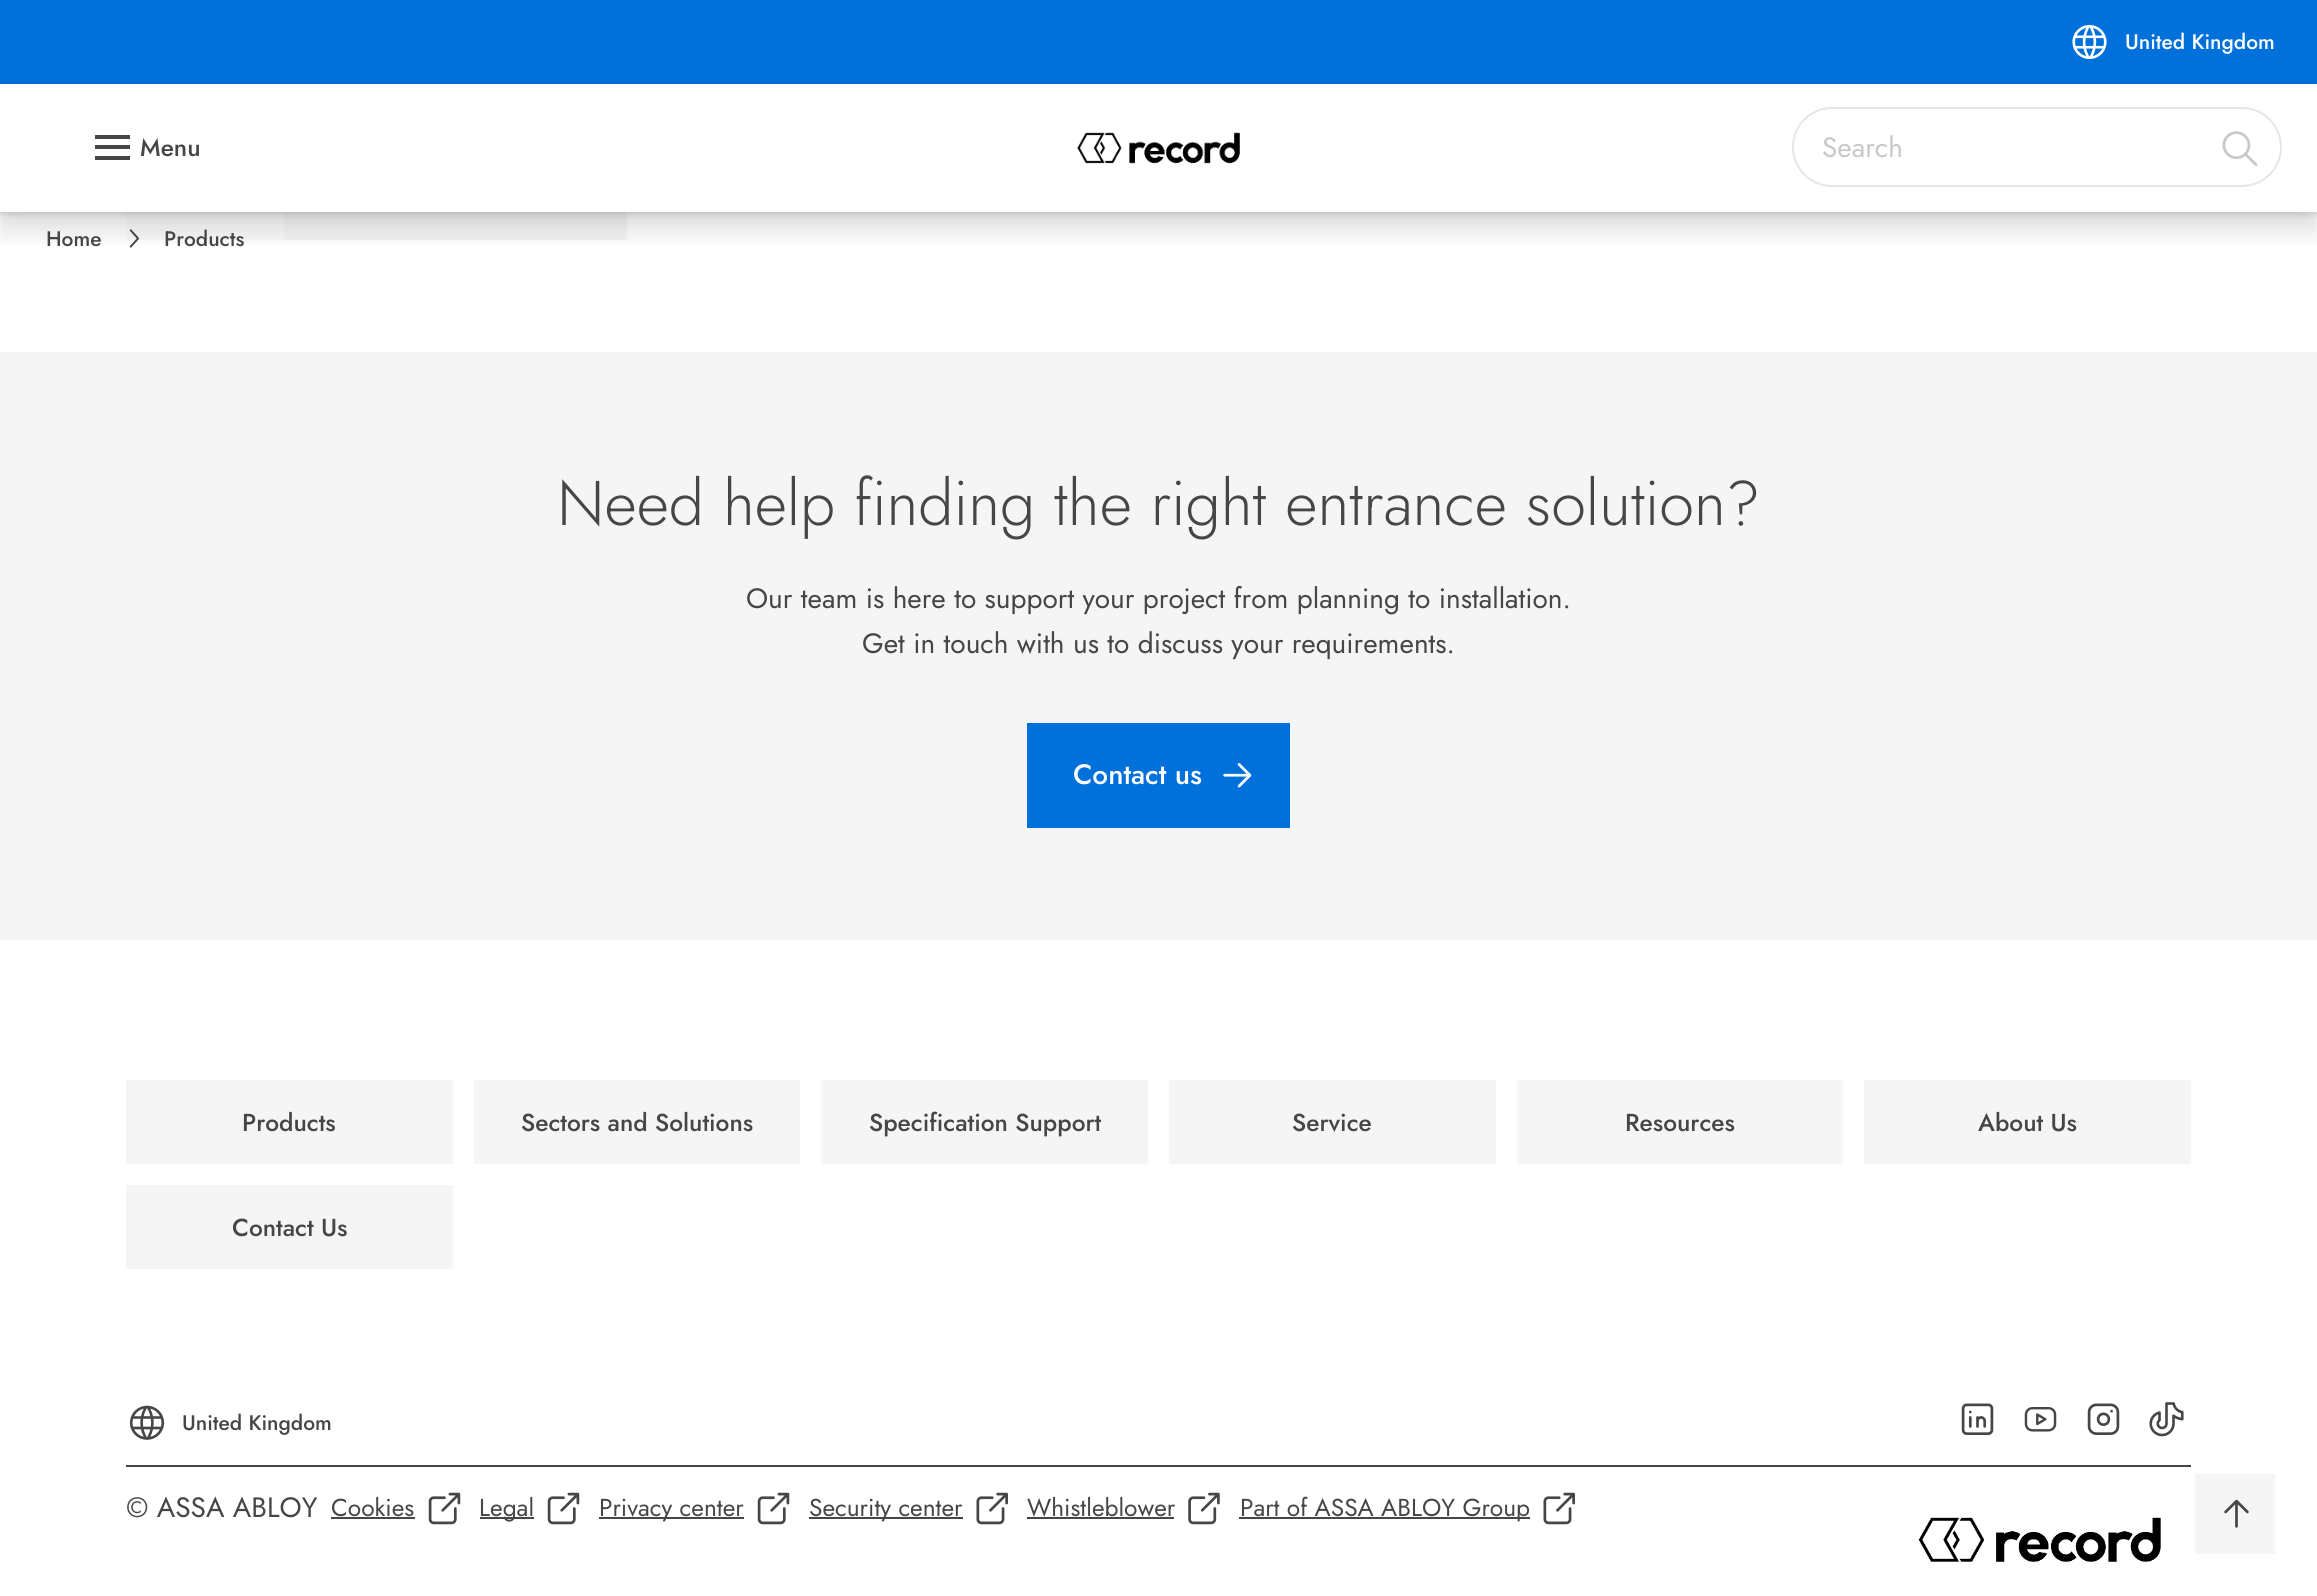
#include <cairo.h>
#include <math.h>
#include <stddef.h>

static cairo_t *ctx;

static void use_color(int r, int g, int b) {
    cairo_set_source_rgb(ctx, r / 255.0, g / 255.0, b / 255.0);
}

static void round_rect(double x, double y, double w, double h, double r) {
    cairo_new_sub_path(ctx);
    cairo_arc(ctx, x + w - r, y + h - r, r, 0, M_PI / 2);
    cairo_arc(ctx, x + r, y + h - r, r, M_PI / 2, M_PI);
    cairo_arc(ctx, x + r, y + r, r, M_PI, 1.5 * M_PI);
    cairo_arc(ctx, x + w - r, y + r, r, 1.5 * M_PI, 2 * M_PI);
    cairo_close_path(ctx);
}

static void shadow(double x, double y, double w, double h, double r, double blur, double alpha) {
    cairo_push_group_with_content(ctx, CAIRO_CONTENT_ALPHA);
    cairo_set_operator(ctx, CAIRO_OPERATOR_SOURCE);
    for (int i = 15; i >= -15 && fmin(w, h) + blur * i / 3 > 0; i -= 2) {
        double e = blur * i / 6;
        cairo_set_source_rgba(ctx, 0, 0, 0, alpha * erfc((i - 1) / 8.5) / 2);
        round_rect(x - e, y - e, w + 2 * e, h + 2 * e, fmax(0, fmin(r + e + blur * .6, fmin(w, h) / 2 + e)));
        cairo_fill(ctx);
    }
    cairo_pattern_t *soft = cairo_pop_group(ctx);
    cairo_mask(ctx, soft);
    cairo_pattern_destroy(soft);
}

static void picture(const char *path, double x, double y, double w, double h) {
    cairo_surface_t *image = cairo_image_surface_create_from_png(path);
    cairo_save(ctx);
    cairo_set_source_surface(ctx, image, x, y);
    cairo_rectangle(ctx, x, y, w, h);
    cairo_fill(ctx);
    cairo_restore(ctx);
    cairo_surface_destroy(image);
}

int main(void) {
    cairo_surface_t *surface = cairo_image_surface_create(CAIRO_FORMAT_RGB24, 2317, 1596);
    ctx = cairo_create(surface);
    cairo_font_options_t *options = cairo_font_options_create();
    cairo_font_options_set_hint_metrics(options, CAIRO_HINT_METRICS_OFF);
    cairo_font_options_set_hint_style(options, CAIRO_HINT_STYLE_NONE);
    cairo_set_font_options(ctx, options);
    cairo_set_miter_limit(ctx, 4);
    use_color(255, 255, 255);
    cairo_paint(ctx);
    use_color(0, 112, 219);
    cairo_rectangle(ctx, 0, 0, 2317, 84);
    cairo_fill(ctx);
    picture("img1.png", 2072, 24, 35, 36);
    cairo_select_font_face(ctx, "Jost Medium", CAIRO_FONT_SLANT_NORMAL, CAIRO_FONT_WEIGHT_NORMAL);
    cairo_set_font_size(ctx, 21);
    use_color(255, 255, 255);
    cairo_move_to(ctx, 2125, 49);
    cairo_show_text(ctx, "United Kingdom");
    use_color(70, 70, 70);
    cairo_rectangle(ctx, 95, 135, 35, 4);
    cairo_fill(ctx);
    cairo_rectangle(ctx, 95, 145, 35, 4);
    cairo_fill(ctx);
    cairo_rectangle(ctx, 95, 156, 35, 4);
    cairo_fill(ctx);
    picture("img2.png", 1077, 132, 163, 32);
    round_rect(1793, 108, 488, 78, 39);
    use_color(230, 230, 230);
    cairo_stroke(ctx);
    picture("img3.png", 2222, 131, 36, 36);
    use_color(245, 245, 245);
    cairo_rectangle(ctx, 126, 212, 501, 28);
    cairo_fill(ctx);
    cairo_set_source_rgba(ctx, 1, 1, 1, 0.5);
    cairo_new_path(ctx);
    cairo_move_to(ctx, 0, 212);
    cairo_line_to(ctx, 284, 212);
    cairo_line_to(ctx, 284, 254);
    cairo_curve_to(ctx, 284, 261.5, 277.5, 268, 270, 268);
    cairo_line_to(ctx, 0, 268);
    cairo_close_path(ctx);
    cairo_fill(ctx);
    cairo_save(ctx);
    cairo_set_fill_rule(ctx, CAIRO_FILL_RULE_EVEN_ODD);
    cairo_new_path(ctx);
    cairo_move_to(ctx, 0, 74);
    cairo_line_to(ctx, 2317, 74);
    cairo_line_to(ctx, 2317, 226);
    cairo_line_to(ctx, 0, 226);
    cairo_close_path(ctx);
    cairo_move_to(ctx, 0, 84);
    cairo_line_to(ctx, 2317, 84);
    cairo_line_to(ctx, 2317, 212);
    cairo_line_to(ctx, 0, 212);
    cairo_close_path(ctx);
    cairo_clip(ctx);
    use_color(0, 0, 0);
    shadow(0, 86, 2317, 128, 0, 3.5, 0.15);
    cairo_restore(ctx);
    picture("img4.png", 129, 229, 10, 19);
    cairo_save(ctx);
    cairo_set_fill_rule(ctx, CAIRO_FILL_RULE_EVEN_ODD);
    cairo_new_path(ctx);
    cairo_move_to(ctx, 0, 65);
    cairo_line_to(ctx, 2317, 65);
    cairo_line_to(ctx, 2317, 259);
    cairo_line_to(ctx, 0, 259);
    cairo_close_path(ctx);
    cairo_move_to(ctx, 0, 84);
    cairo_line_to(ctx, 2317, 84);
    cairo_line_to(ctx, 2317, 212);
    cairo_line_to(ctx, 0, 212);
    cairo_close_path(ctx);
    cairo_clip(ctx);
    use_color(0, 0, 0);
    shadow(0, 98, 2317, 128, 0, 10.5, 0.1);
    cairo_restore(ctx);
    cairo_save(ctx);
    cairo_rectangle(ctx, 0, 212, 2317, 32);
    cairo_clip(ctx);
    use_color(0, 0, 0);
    shadow(0, 112, 2317, 128, 0, 17.5, 0.05);
    cairo_restore(ctx);
    cairo_set_font_size(ctx, 24.5);
    use_color(70, 70, 70);
    cairo_move_to(ctx, 140, 156);
    cairo_show_text(ctx, "Menu");
    cairo_select_font_face(ctx, "Jost", CAIRO_FONT_SLANT_NORMAL, CAIRO_FONT_WEIGHT_NORMAL);
    cairo_set_font_size(ctx, 28);
    use_color(200, 200, 200);
    cairo_move_to(ctx, 1822, 157);
    cairo_show_text(ctx, "Search");
    cairo_select_font_face(ctx, "Jost Medium", CAIRO_FONT_SLANT_NORMAL, CAIRO_FONT_WEIGHT_NORMAL);
    cairo_set_font_size(ctx, 21);
    use_color(70, 70, 70);
    cairo_move_to(ctx, 46, 246);
    cairo_show_text(ctx, "Home");
    cairo_move_to(ctx, 164, 246);
    cairo_show_text(ctx, "Products");
    use_color(245, 245, 245);
    cairo_rectangle(ctx, 0, 352, 2317, 588);
    cairo_fill(ctx);
    cairo_select_font_face(ctx, "Jost Light", CAIRO_FONT_SLANT_NORMAL, CAIRO_FONT_WEIGHT_NORMAL);
    cairo_set_font_size(ctx, 63);
    use_color(70, 70, 70);
    cairo_move_to(ctx, 557, 525);
    cairo_show_text(ctx, "Need help finding the right entrance solution?");
    cairo_select_font_face(ctx, "Jost", CAIRO_FONT_SLANT_NORMAL, CAIRO_FONT_WEIGHT_NORMAL);
    cairo_set_font_size(ctx, 28);
    cairo_move_to(ctx, 746, 608);
    cairo_show_text(ctx, "Our team is here to support your project from planning to installation.");
    cairo_move_to(ctx, 862, 653);
    cairo_show_text(ctx, "Get in touch with us to discuss your requirements.");
    use_color(0, 112, 219);
    cairo_rectangle(ctx, 1027, 723, 263, 105);
    cairo_fill(ctx);
    cairo_select_font_face(ctx, "Jost Medium", CAIRO_FONT_SLANT_NORMAL, CAIRO_FONT_WEIGHT_NORMAL);
    use_color(255, 255, 255);
    cairo_move_to(ctx, 1073, 784);
    cairo_show_text(ctx, "Contact us");
    picture("img5.png", 1223, 763, 29, 25);
    use_color(245, 245, 245);
    cairo_rectangle(ctx, 126, 1080, 327, 84);
    cairo_fill(ctx);
    cairo_set_font_size(ctx, 24.5);
    use_color(70, 70, 70);
    cairo_move_to(ctx, 242, 1131);
    cairo_show_text(ctx, "Products");
    use_color(245, 245, 245);
    cairo_rectangle(ctx, 474, 1080, 326, 84);
    cairo_fill(ctx);
    use_color(70, 70, 70);
    cairo_move_to(ctx, 521, 1131);
    cairo_show_text(ctx, "Sectors and Solutions");
    use_color(245, 245, 245);
    cairo_rectangle(ctx, 821, 1080, 327, 84);
    cairo_fill(ctx);
    use_color(70, 70, 70);
    cairo_move_to(ctx, 869, 1131);
    cairo_show_text(ctx, "Specification Support");
    use_color(245, 245, 245);
    cairo_rectangle(ctx, 1169, 1080, 327, 84);
    cairo_fill(ctx);
    use_color(70, 70, 70);
    cairo_move_to(ctx, 1292, 1131);
    cairo_show_text(ctx, "Service");
    use_color(245, 245, 245);
    cairo_rectangle(ctx, 1517, 1080, 326, 84);
    cairo_fill(ctx);
    use_color(70, 70, 70);
    cairo_move_to(ctx, 1625, 1131);
    cairo_show_text(ctx, "Resources");
    use_color(245, 245, 245);
    cairo_rectangle(ctx, 1864, 1080, 327, 84);
    cairo_fill(ctx);
    use_color(70, 70, 70);
    cairo_move_to(ctx, 1978, 1131);
    cairo_show_text(ctx, "About Us");
    use_color(245, 245, 245);
    cairo_rectangle(ctx, 126, 1185, 327, 84);
    cairo_fill(ctx);
    use_color(70, 70, 70);
    cairo_move_to(ctx, 232, 1236);
    cairo_show_text(ctx, "Contact Us");
    picture("img6.png", 129, 1405, 36, 35);
    cairo_set_font_size(ctx, 21);
    cairo_move_to(ctx, 182, 1430);
    cairo_show_text(ctx, "United Kingdom");
    picture("img7.png", 1961, 1403, 33, 32);
    picture("img8.png", 2024, 1407, 33, 25);
    picture("img9.png", 2087, 1403, 33, 32);
    picture("img10.png", 2149, 1402, 35, 35);
    cairo_rectangle(ctx, 126, 1465, 2065, 2);
    cairo_fill(ctx);
    cairo_select_font_face(ctx, "Jost", CAIRO_FONT_SLANT_NORMAL, CAIRO_FONT_WEIGHT_NORMAL);
    cairo_set_font_size(ctx, 28);
    cairo_move_to(ctx, 126, 1517);
    cairo_show_text(ctx, "© ASSA ABLOY");
    cairo_set_font_size(ctx, 24.5);
    cairo_move_to(ctx, 331, 1516);
    cairo_show_text(ctx, "Cookies");
    cairo_rectangle(ctx, 331, 1517, 84, 2);
    cairo_fill(ctx);
    picture("img11.png", 428, 1492, 33, 33);
    cairo_rectangle(ctx, 480, 1517, 54, 2);
    cairo_fill(ctx);
    cairo_move_to(ctx, 479, 1516);
    cairo_show_text(ctx, "Legal");
    picture("img11.png", 547, 1492, 33, 33);
    cairo_rectangle(ctx, 599, 1517, 145, 2);
    cairo_fill(ctx);
    cairo_move_to(ctx, 599, 1516);
    cairo_show_text(ctx, "Privacy center");
    picture("img11.png", 757, 1492, 33, 33);
    cairo_rectangle(ctx, 809, 1517, 154, 2);
    cairo_fill(ctx);
    cairo_move_to(ctx, 809, 1516);
    cairo_show_text(ctx, "Security center");
    picture("img12.png", 976, 1492, 32, 33);
    cairo_move_to(ctx, 1027, 1516);
    cairo_show_text(ctx, "Whistleblower");
    cairo_rectangle(ctx, 1027, 1517, 147, 2);
    cairo_fill(ctx);
    picture("img13.png", 1188, 1492, 32, 33);
    cairo_rectangle(ctx, 1239, 1517, 291, 2);
    cairo_fill(ctx);
    cairo_move_to(ctx, 1240, 1516);
    cairo_show_text(ctx, "Part of ASSA ABLOY Group");
    picture("img12.png", 1543, 1492, 32, 33);
    picture("img14.png", 1918, 1517, 243, 45);
    use_color(245, 245, 245);
    cairo_rectangle(ctx, 2195, 1474, 80, 80);
    cairo_fill(ctx);
    picture("img15.png", 2224, 1499, 25, 29);
    cairo_surface_write_to_png(surface, "result.png");
    cairo_font_options_destroy(options);
    cairo_destroy(ctx);
    cairo_surface_destroy(surface);
    return 0;
}
